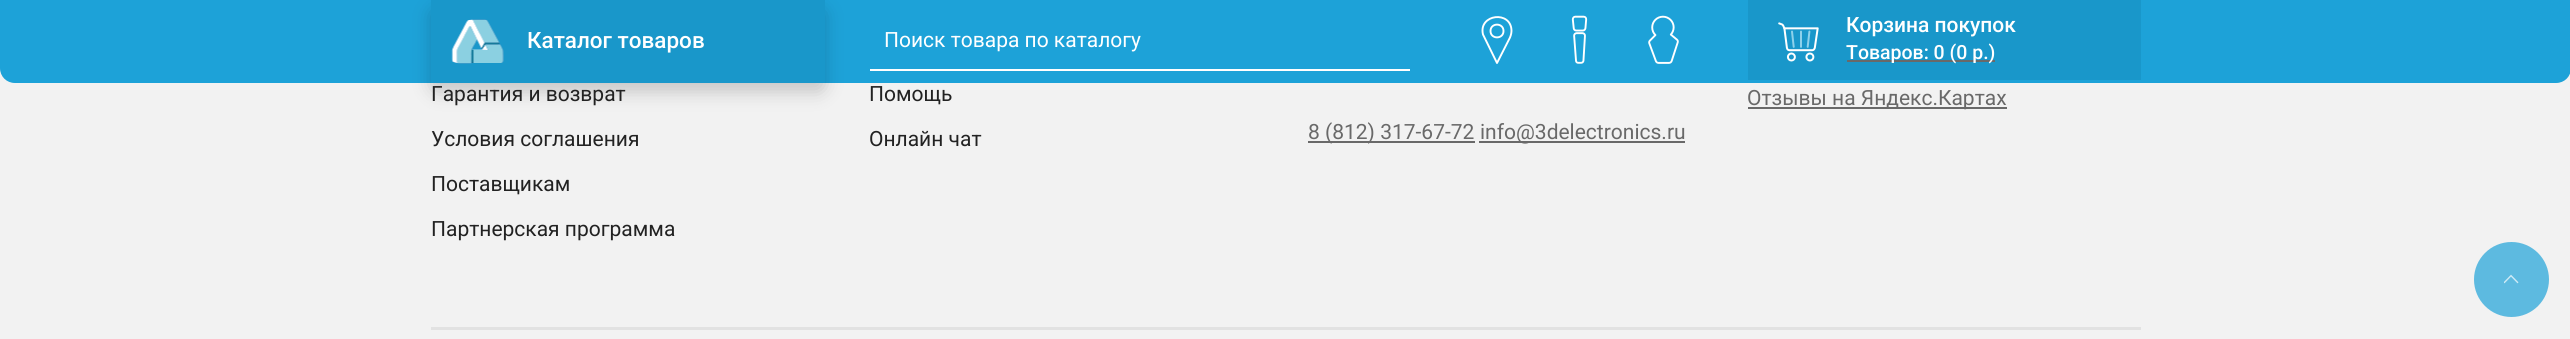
#include <cairo.h>
#include <math.h>
#include <stddef.h>

static cairo_t *ctx;

static void use_color(int r, int g, int b) {
    cairo_set_source_rgb(ctx, r / 255.0, g / 255.0, b / 255.0);
}

static void round_rect(double x, double y, double w, double h, double r) {
    cairo_new_sub_path(ctx);
    cairo_arc(ctx, x + w - r, y + h - r, r, 0, M_PI / 2);
    cairo_arc(ctx, x + r, y + h - r, r, M_PI / 2, M_PI);
    cairo_arc(ctx, x + r, y + r, r, M_PI, 1.5 * M_PI);
    cairo_arc(ctx, x + w - r, y + r, r, 1.5 * M_PI, 2 * M_PI);
    cairo_close_path(ctx);
}

static void shadow(double x, double y, double w, double h, double r, double blur, double alpha) {
    cairo_push_group_with_content(ctx, CAIRO_CONTENT_ALPHA);
    cairo_set_operator(ctx, CAIRO_OPERATOR_SOURCE);
    for (int i = 15; i >= -15 && fmin(w, h) + blur * i / 3 > 0; i -= 2) {
        double e = blur * i / 6;
        cairo_set_source_rgba(ctx, 0, 0, 0, alpha * erfc((i - 1) / 8.5) / 2);
        round_rect(x - e, y - e, w + 2 * e, h + 2 * e, fmax(0, fmin(r + e + blur * .6, fmin(w, h) / 2 + e)));
        cairo_fill(ctx);
    }
    cairo_pattern_t *soft = cairo_pop_group(ctx);
    cairo_mask(ctx, soft);
    cairo_pattern_destroy(soft);
}

static void picture(const char *path, double x, double y, double w, double h) {
    cairo_surface_t *image = cairo_image_surface_create_from_png(path);
    cairo_save(ctx);
    cairo_set_source_surface(ctx, image, x, y);
    cairo_rectangle(ctx, x, y, w, h);
    cairo_fill(ctx);
    cairo_restore(ctx);
    cairo_surface_destroy(image);
}

int main(void) {
    cairo_surface_t *surface = cairo_image_surface_create(CAIRO_FORMAT_RGB24, 2570, 339);
    ctx = cairo_create(surface);
    cairo_font_options_t *options = cairo_font_options_create();
    cairo_font_options_set_hint_metrics(options, CAIRO_HINT_METRICS_OFF);
    cairo_font_options_set_hint_style(options, CAIRO_HINT_STYLE_NONE);
    cairo_set_font_options(ctx, options);
    cairo_set_miter_limit(ctx, 4);
    use_color(242, 242, 242);
    cairo_paint(ctx);
    use_color(29, 162, 216);
    cairo_new_path(ctx);
    cairo_move_to(ctx, 0, 0);
    cairo_line_to(ctx, 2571, 0);
    cairo_line_to(ctx, 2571, 68);
    cairo_curve_to(ctx, 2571, 76.5, 2564.5, 83, 2556, 83);
    cairo_line_to(ctx, 15, 83);
    cairo_curve_to(ctx, 6.5, 83, 0, 76.5, 0, 68);
    cairo_close_path(ctx);
    cairo_fill(ctx);
    use_color(0, 0, 0);
    shadow(431, 9, 394, 83, 6, 9, 0.18);
    use_color(25, 151, 202);
    cairo_rectangle(ctx, 431, 0, 394, 83);
    cairo_fill(ctx);
    picture("img1.png", 451, 19, 53, 45);
    cairo_select_font_face(ctx, "Roboto Medium", CAIRO_FONT_SLANT_NORMAL, CAIRO_FONT_WEIGHT_NORMAL);
    cairo_set_font_size(ctx, 22.5);
    use_color(255, 255, 255);
    cairo_move_to(ctx, 527, 48);
    cairo_show_text(ctx, "Каталог товаров");
    cairo_rectangle(ctx, 870, 69, 540, 2);
    cairo_fill(ctx);
    cairo_select_font_face(ctx, "Roboto", CAIRO_FONT_SLANT_NORMAL, CAIRO_FONT_WEIGHT_NORMAL);
    cairo_set_font_size(ctx, 21);
    cairo_move_to(ctx, 884, 47);
    cairo_show_text(ctx, "Поиск товара по каталогу");
    cairo_new_path(ctx);
    cairo_move_to(ctx, 1503.5, 31);
    cairo_curve_to(ctx, 1503.5, 39.5, 1490.5, 39.5, 1490.5, 31);
    cairo_curve_to(ctx, 1490.5, 22.5, 1503.5, 22.5, 1503.5, 31);
    cairo_close_path(ctx);
    cairo_move_to(ctx, 1511.5, 31);
    cairo_curve_to(ctx, 1511.5, 10, 1478, 14, 1483, 34.5);
    cairo_line_to(ctx, 1497, 63);
    cairo_line_to(ctx, 1510, 37.5);
    cairo_curve_to(ctx, 1510, 37.5, 1511.5, 34, 1511.5, 31);
    cairo_close_path(ctx);
    cairo_set_line_width(ctx, 1.9);
    cairo_set_line_cap(ctx, CAIRO_LINE_CAP_ROUND);
    cairo_set_line_join(ctx, CAIRO_LINE_JOIN_ROUND);
    cairo_stroke(ctx);
    picture("img2.png", 1571, 15, 17, 49);
    picture("img3.png", 1648, 15, 31, 49);
    use_color(25, 151, 202);
    cairo_rectangle(ctx, 1748, 0, 393, 80);
    cairo_fill(ctx);
    picture("img4.png", 1778, 22, 41, 40);
    cairo_select_font_face(ctx, "Roboto Medium", CAIRO_FONT_SLANT_NORMAL, CAIRO_FONT_WEIGHT_NORMAL);
    use_color(255, 255, 255);
    cairo_move_to(ctx, 1846, 32);
    cairo_show_text(ctx, "Корзина покупок");
    use_color(105, 105, 105);
    cairo_rectangle(ctx, 1847, 60, 148, 2);
    cairo_fill(ctx);
    cairo_set_font_size(ctx, 19.5);
    use_color(255, 255, 255);
    cairo_move_to(ctx, 1846, 59);
    cairo_show_text(ctx, "Товаров: 0 (0 р.)");
    cairo_select_font_face(ctx, "Roboto", CAIRO_FONT_SLANT_NORMAL, CAIRO_FONT_WEIGHT_NORMAL);
    cairo_set_font_size(ctx, 21);
    use_color(34, 34, 34);
    cairo_move_to(ctx, 431, 101);
    cairo_show_text(ctx, "Гарантия и возврат");
    cairo_move_to(ctx, 431, 146);
    cairo_show_text(ctx, "Условия соглашения");
    cairo_move_to(ctx, 431, 191);
    cairo_show_text(ctx, "Поставщикам");
    cairo_move_to(ctx, 431, 236);
    cairo_show_text(ctx, "Партнерская программа");
    cairo_move_to(ctx, 869, 101);
    cairo_show_text(ctx, "Помощь");
    cairo_move_to(ctx, 869, 146);
    cairo_show_text(ctx, "Онлайн чат");
    use_color(105, 105, 105);
    cairo_rectangle(ctx, 1308, 141, 167, 2);
    cairo_fill(ctx);
    cairo_move_to(ctx, 1308, 139);
    cairo_show_text(ctx, "8 (812) 317-67-72");
    cairo_rectangle(ctx, 1479, 141, 206, 2);
    cairo_fill(ctx);
    cairo_move_to(ctx, 1480, 139);
    cairo_show_text(ctx, "info@3delectronics.ru");
    cairo_rectangle(ctx, 1748, 107, 259, 2);
    cairo_fill(ctx);
    cairo_move_to(ctx, 1747, 105);
    cairo_show_text(ctx, "Отзывы на Яндекс.Картах");
    use_color(93, 186, 224);
    cairo_new_path(ctx);
    cairo_arc(ctx, 2511.5, 279.5, 37.5, 0, 2 * M_PI);
    cairo_fill(ctx);
    picture("img5.png", 2504, 274, 15, 10);
    use_color(226, 226, 226);
    cairo_rectangle(ctx, 431, 327, 1710, 3);
    cairo_fill(ctx);
    cairo_surface_write_to_png(surface, "result.png");
    cairo_font_options_destroy(options);
    cairo_destroy(ctx);
    cairo_surface_destroy(surface);
    return 0;
}
